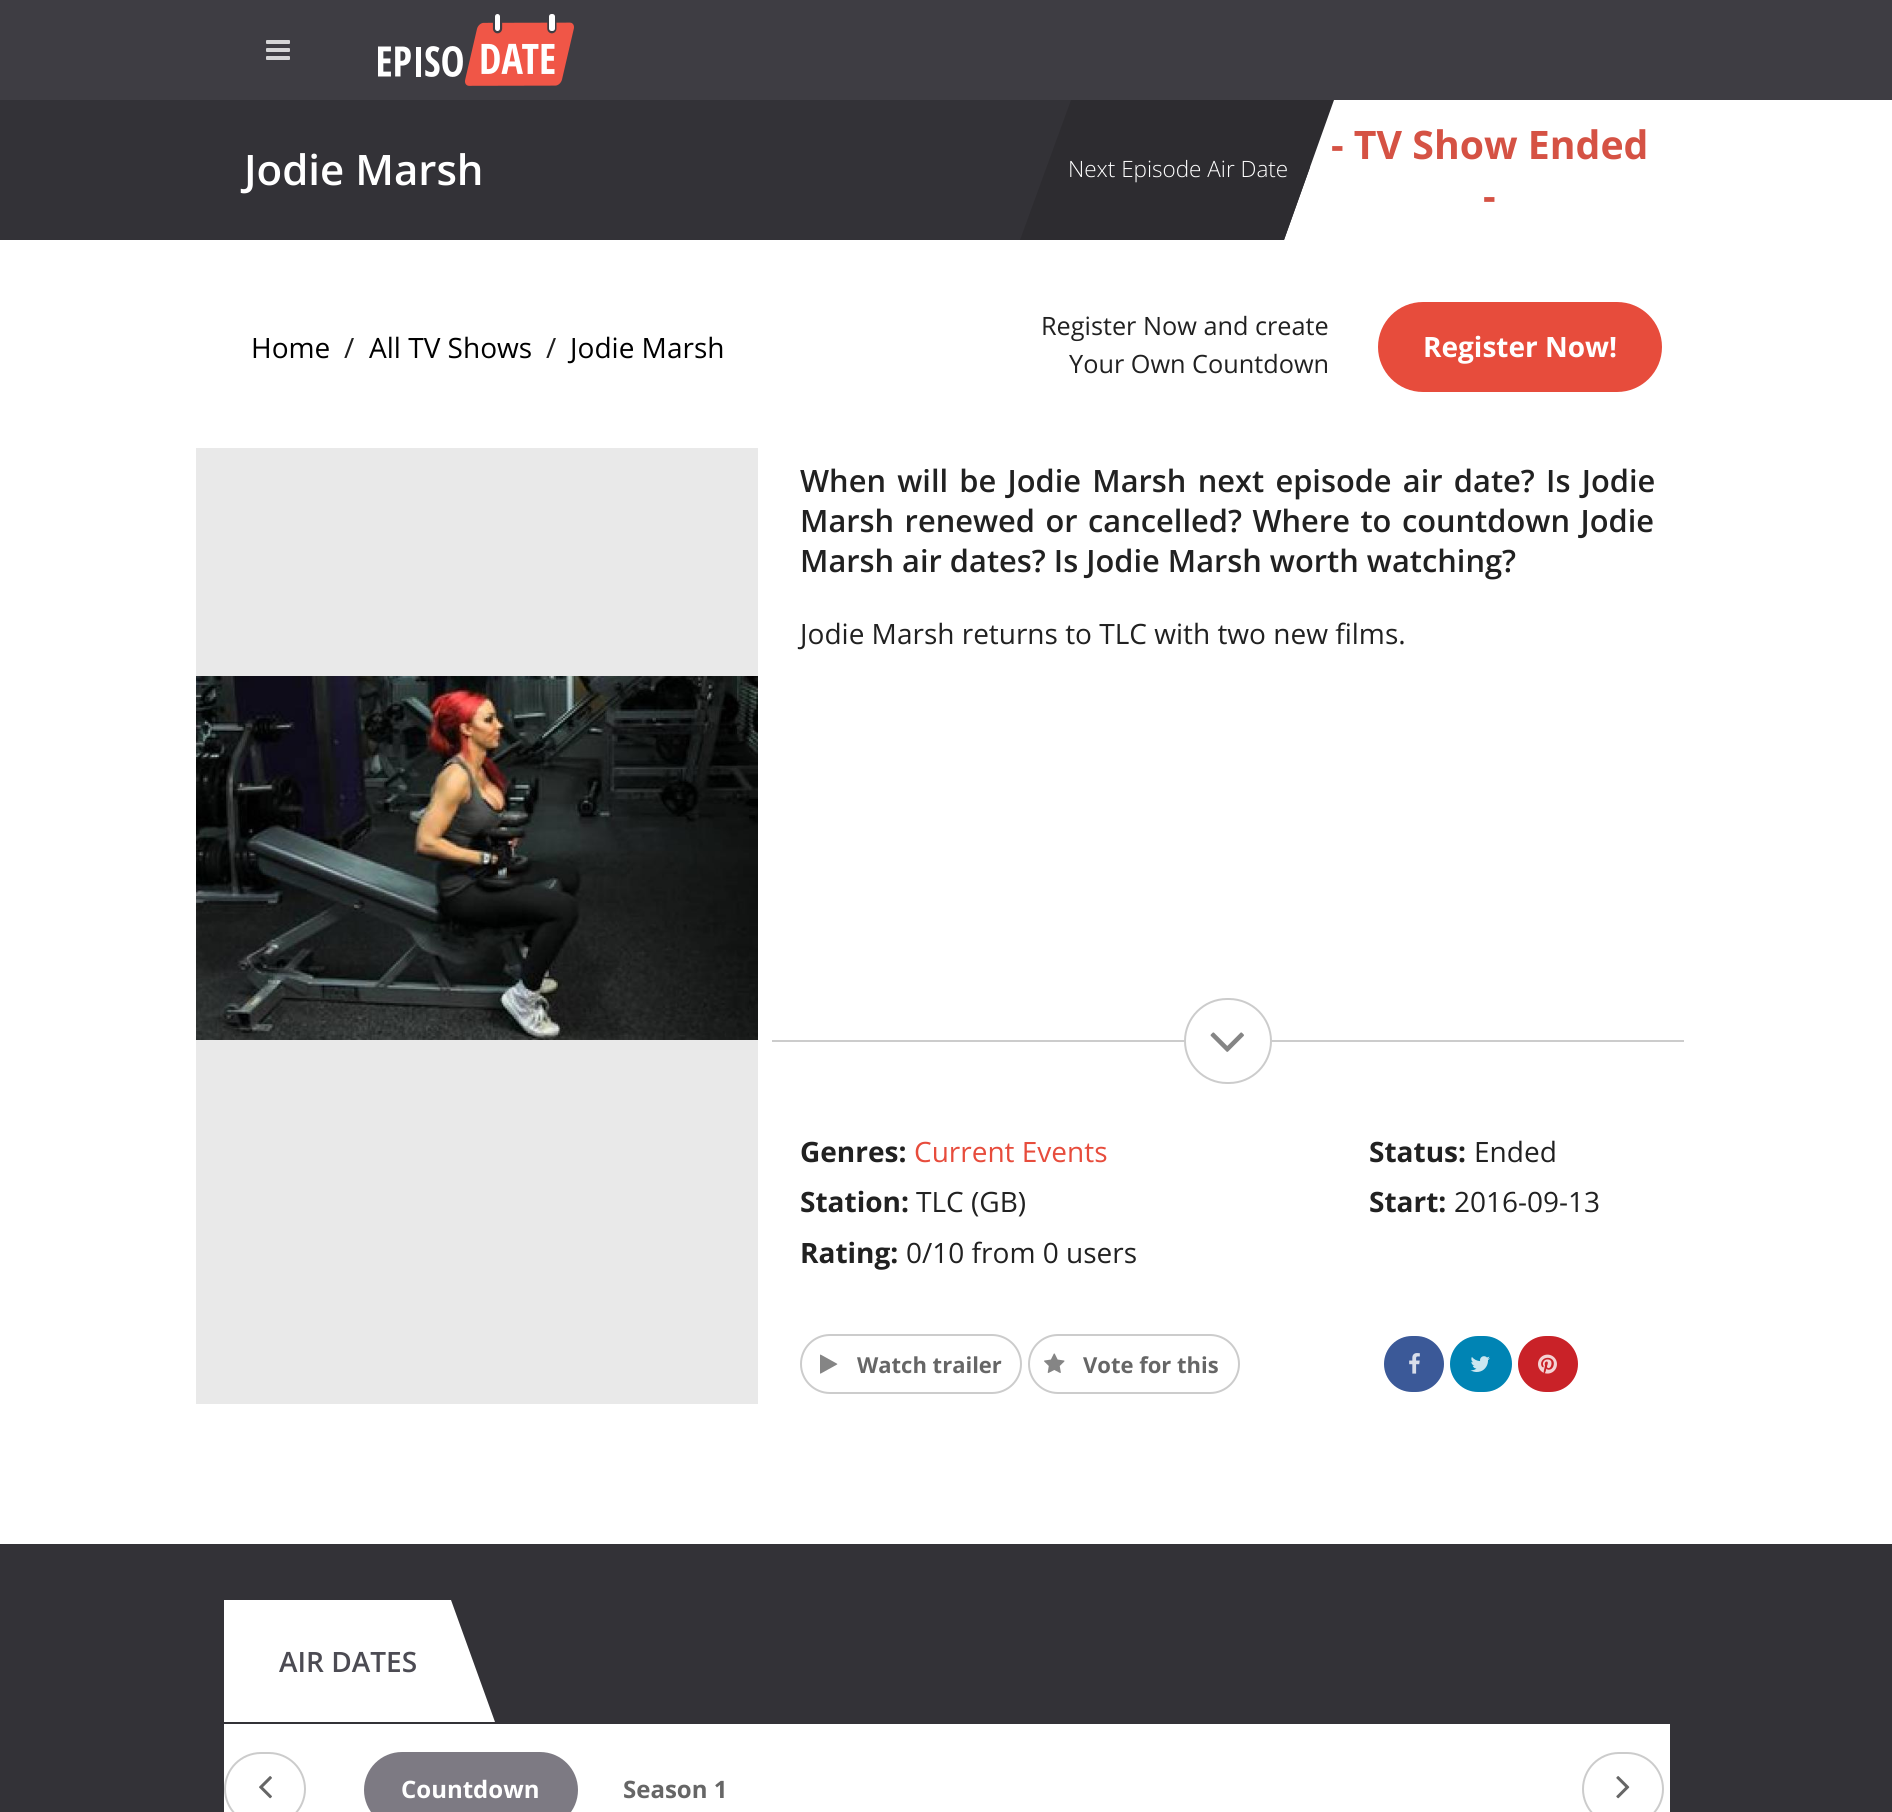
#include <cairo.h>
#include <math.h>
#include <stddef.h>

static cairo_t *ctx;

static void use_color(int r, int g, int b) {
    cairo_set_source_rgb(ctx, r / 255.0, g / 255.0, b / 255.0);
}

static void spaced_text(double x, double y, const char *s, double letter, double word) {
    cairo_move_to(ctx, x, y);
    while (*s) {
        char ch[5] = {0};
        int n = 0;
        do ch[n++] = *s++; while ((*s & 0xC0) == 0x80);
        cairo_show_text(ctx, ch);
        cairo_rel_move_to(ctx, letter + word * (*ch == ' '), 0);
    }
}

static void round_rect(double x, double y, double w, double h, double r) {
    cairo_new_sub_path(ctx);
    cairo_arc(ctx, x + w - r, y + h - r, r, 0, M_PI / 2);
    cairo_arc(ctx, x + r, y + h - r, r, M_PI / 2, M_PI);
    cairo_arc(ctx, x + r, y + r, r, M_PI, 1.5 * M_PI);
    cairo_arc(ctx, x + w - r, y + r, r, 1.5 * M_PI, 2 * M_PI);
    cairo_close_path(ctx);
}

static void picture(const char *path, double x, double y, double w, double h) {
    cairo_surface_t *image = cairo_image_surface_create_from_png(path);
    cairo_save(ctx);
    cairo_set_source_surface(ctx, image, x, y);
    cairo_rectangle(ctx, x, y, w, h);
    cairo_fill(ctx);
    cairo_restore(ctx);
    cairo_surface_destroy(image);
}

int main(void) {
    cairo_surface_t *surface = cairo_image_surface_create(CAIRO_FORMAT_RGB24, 1892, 1812);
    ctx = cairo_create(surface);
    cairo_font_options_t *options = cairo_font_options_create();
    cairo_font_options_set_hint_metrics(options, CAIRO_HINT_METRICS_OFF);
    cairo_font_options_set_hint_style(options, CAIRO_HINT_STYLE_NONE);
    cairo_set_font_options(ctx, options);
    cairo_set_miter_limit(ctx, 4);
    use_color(255, 255, 255);
    cairo_paint(ctx);
    use_color(62, 61, 67);
    cairo_rectangle(ctx, 0, 0, 1892, 100);
    cairo_fill(ctx);
    picture("img1.png", 266, 40, 24, 20);
    picture("img2.png", 378, 14, 196, 72);
    use_color(51, 50, 55);
    cairo_rectangle(ctx, 0, 100, 1310, 140);
    cairo_fill(ctx);
    cairo_select_font_face(ctx, "Open Sans SemiBold", CAIRO_FONT_SLANT_NORMAL, CAIRO_FONT_WEIGHT_NORMAL);
    cairo_set_font_size(ctx, 42);
    use_color(255, 255, 255);
    cairo_move_to(ctx, 244, 185);
    cairo_show_text(ctx, "Jodie Marsh");
    cairo_new_path(ctx);
    cairo_move_to(ctx, 1334, 100);
    cairo_line_to(ctx, 1694, 100);
    cairo_line_to(ctx, 1644, 240);
    cairo_line_to(ctx, 1284, 240);
    cairo_close_path(ctx);
    cairo_fill(ctx);
    cairo_select_font_face(ctx, "Open Sans", CAIRO_FONT_SLANT_NORMAL, CAIRO_FONT_WEIGHT_BOLD);
    cairo_set_font_size(ctx, 39.25);
    use_color(213, 82, 68);
    cairo_move_to(ctx, 1331, 159);
    cairo_show_text(ctx, "- TV Show Ended");
    use_color(45, 44, 48);
    cairo_new_path(ctx);
    cairo_move_to(ctx, 1071, 100);
    cairo_line_to(ctx, 1334, 100);
    cairo_line_to(ctx, 1284, 240);
    cairo_line_to(ctx, 1020, 240);
    cairo_close_path(ctx);
    cairo_fill(ctx);
    cairo_select_font_face(ctx, "Open Sans Light", CAIRO_FONT_SLANT_NORMAL, CAIRO_FONT_WEIGHT_NORMAL);
    cairo_set_font_size(ctx, 22.5);
    use_color(255, 255, 255);
    cairo_move_to(ctx, 1068, 177);
    cairo_show_text(ctx, "Next Episode Air Date");
    cairo_select_font_face(ctx, "Open Sans", CAIRO_FONT_SLANT_NORMAL, CAIRO_FONT_WEIGHT_BOLD);
    cairo_set_font_size(ctx, 39.25);
    use_color(213, 82, 68);
    cairo_move_to(ctx, 1483, 210);
    cairo_show_text(ctx, "-");
    cairo_select_font_face(ctx, "Open Sans", CAIRO_FONT_SLANT_NORMAL, CAIRO_FONT_WEIGHT_NORMAL);
    cairo_set_font_size(ctx, 28);
    use_color(0, 0, 0);
    cairo_move_to(ctx, 251, 358);
    cairo_show_text(ctx, "Home");
    use_color(33, 33, 33);
    cairo_move_to(ctx, 344, 358);
    cairo_show_text(ctx, "/");
    use_color(0, 0, 0);
    cairo_move_to(ctx, 369, 358);
    cairo_show_text(ctx, "All TV Shows");
    use_color(33, 33, 33);
    cairo_move_to(ctx, 546, 358);
    cairo_show_text(ctx, "/");
    use_color(0, 0, 0);
    cairo_move_to(ctx, 570, 358);
    cairo_show_text(ctx, "Jodie Marsh");
    cairo_set_font_size(ctx, 25.25);
    use_color(33, 33, 33);
    cairo_move_to(ctx, 1041, 335);
    cairo_show_text(ctx, "Register Now and create");
    cairo_move_to(ctx, 1069, 373);
    cairo_show_text(ctx, "Your Own Countdown");
    use_color(231, 76, 60);
    round_rect(1378, 302, 284, 90, 45);
    cairo_fill(ctx);
    cairo_select_font_face(ctx, "Open Sans", CAIRO_FONT_SLANT_NORMAL, CAIRO_FONT_WEIGHT_BOLD);
    cairo_set_font_size(ctx, 28);
    use_color(255, 255, 255);
    cairo_move_to(ctx, 1423, 357);
    cairo_show_text(ctx, "Register Now!");
    use_color(233, 233, 233);
    cairo_rectangle(ctx, 196, 448, 562, 956);
    cairo_fill(ctx);
    picture("img3.png", 196, 676, 562, 364);
    cairo_select_font_face(ctx, "Open Sans SemiBold", CAIRO_FONT_SLANT_NORMAL, CAIRO_FONT_WEIGHT_NORMAL);
    cairo_set_font_size(ctx, 30.8);
    use_color(33, 33, 33);
    spaced_text(800, 492, "When will be Jodie Marsh next episode air date? Is Jodie", 0, 3.25);
    spaced_text(800, 532, "Marsh renewed or cancelled? Where to countdown Jodie", 0, 2.5);
    cairo_move_to(ctx, 800, 572);
    cairo_show_text(ctx, "Marsh air dates? Is Jodie Marsh worth watching?");
    cairo_select_font_face(ctx, "Open Sans", CAIRO_FONT_SLANT_NORMAL, CAIRO_FONT_WEIGHT_NORMAL);
    cairo_set_font_size(ctx, 28);
    cairo_move_to(ctx, 800, 644);
    cairo_show_text(ctx, "Jodie Marsh returns to TLC with two new films.");
    use_color(204, 204, 204);
    cairo_rectangle(ctx, 772, 1040, 912, 2);
    cairo_fill(ctx);
    use_color(255, 255, 255);
    round_rect(1185, 999, 86, 84, 42);
    cairo_fill_preserve(ctx);
    use_color(204, 204, 204);
    cairo_stroke(ctx);
    picture("img4.png", 1210, 1032, 34, 20);
    cairo_select_font_face(ctx, "Open Sans", CAIRO_FONT_SLANT_NORMAL, CAIRO_FONT_WEIGHT_BOLD);
    use_color(33, 33, 33);
    cairo_move_to(ctx, 800, 1162);
    cairo_show_text(ctx, "Genres:");
    cairo_select_font_face(ctx, "Open Sans", CAIRO_FONT_SLANT_NORMAL, CAIRO_FONT_WEIGHT_NORMAL);
    use_color(231, 76, 60);
    cairo_move_to(ctx, 914, 1162);
    cairo_show_text(ctx, "Current Events");
    cairo_select_font_face(ctx, "Open Sans", CAIRO_FONT_SLANT_NORMAL, CAIRO_FONT_WEIGHT_BOLD);
    use_color(33, 33, 33);
    cairo_move_to(ctx, 800, 1212);
    cairo_show_text(ctx, "Station:");
    cairo_select_font_face(ctx, "Open Sans", CAIRO_FONT_SLANT_NORMAL, CAIRO_FONT_WEIGHT_NORMAL);
    cairo_move_to(ctx, 916, 1212);
    cairo_show_text(ctx, "TLC (GB)");
    cairo_select_font_face(ctx, "Open Sans", CAIRO_FONT_SLANT_NORMAL, CAIRO_FONT_WEIGHT_BOLD);
    cairo_move_to(ctx, 800, 1263);
    cairo_show_text(ctx, "Rating:");
    cairo_select_font_face(ctx, "Open Sans", CAIRO_FONT_SLANT_NORMAL, CAIRO_FONT_WEIGHT_NORMAL);
    cairo_move_to(ctx, 906, 1263);
    cairo_show_text(ctx, "0/10 from 0 users");
    cairo_select_font_face(ctx, "Open Sans", CAIRO_FONT_SLANT_NORMAL, CAIRO_FONT_WEIGHT_BOLD);
    cairo_move_to(ctx, 1369, 1162);
    cairo_show_text(ctx, "Status:");
    cairo_select_font_face(ctx, "Open Sans", CAIRO_FONT_SLANT_NORMAL, CAIRO_FONT_WEIGHT_NORMAL);
    cairo_move_to(ctx, 1474, 1162);
    cairo_show_text(ctx, "Ended");
    cairo_select_font_face(ctx, "Open Sans", CAIRO_FONT_SLANT_NORMAL, CAIRO_FONT_WEIGHT_BOLD);
    cairo_move_to(ctx, 1369, 1212);
    cairo_show_text(ctx, "Start:");
    cairo_select_font_face(ctx, "Open Sans", CAIRO_FONT_SLANT_NORMAL, CAIRO_FONT_WEIGHT_NORMAL);
    cairo_move_to(ctx, 1454, 1212);
    cairo_show_text(ctx, "2016-09-13");
    round_rect(801, 1335, 220, 58, 29);
    use_color(204, 204, 204);
    cairo_stroke(ctx);
    picture("img5.png", 820, 1354, 18, 20);
    cairo_select_font_face(ctx, "Open Sans", CAIRO_FONT_SLANT_NORMAL, CAIRO_FONT_WEIGHT_BOLD);
    cairo_set_font_size(ctx, 22);
    use_color(102, 102, 102);
    cairo_move_to(ctx, 857, 1373);
    cairo_show_text(ctx, "Watch trailer");
    round_rect(1029, 1335, 210, 58, 29);
    use_color(204, 204, 204);
    cairo_stroke(ctx);
    picture("img6.png", 1044, 1353, 21, 20);
    use_color(102, 102, 102);
    cairo_move_to(ctx, 1083, 1373);
    cairo_show_text(ctx, "Vote for this");
    use_color(59, 89, 152);
    round_rect(1384, 1336, 60, 56, 28);
    cairo_fill(ctx);
    picture("img7.png", 1409, 1353, 11, 21);
    use_color(0, 132, 180);
    round_rect(1450, 1336, 62, 56, 28);
    cairo_fill(ctx);
    picture("img8.png", 1470, 1356, 20, 16);
    use_color(201, 34, 40);
    round_rect(1518, 1336, 60, 56, 28);
    cairo_fill(ctx);
    picture("img9.png", 1538, 1354, 19, 20);
    use_color(51, 50, 55);
    cairo_rectangle(ctx, 0, 1544, 1892, 268);
    cairo_fill(ctx);
    use_color(255, 255, 255);
    cairo_new_path(ctx);
    cairo_move_to(ctx, 251, 1600);
    cairo_line_to(ctx, 451, 1600);
    cairo_line_to(ctx, 495, 1722);
    cairo_line_to(ctx, 295, 1722);
    cairo_close_path(ctx);
    cairo_fill(ctx);
    cairo_rectangle(ctx, 224, 1600, 71, 122);
    cairo_fill(ctx);
    cairo_select_font_face(ctx, "Open Sans SemiBold", CAIRO_FONT_SLANT_NORMAL, CAIRO_FONT_WEIGHT_NORMAL);
    cairo_set_font_size(ctx, 28);
    use_color(76, 75, 83);
    cairo_move_to(ctx, 279, 1672);
    cairo_show_text(ctx, "AIR DATES");
    use_color(255, 255, 255);
    cairo_rectangle(ctx, 224, 1724, 1446, 88);
    cairo_fill(ctx);
    round_rect(225, 1753, 80, 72, 36);
    use_color(204, 204, 204);
    cairo_stroke(ctx);
    picture("img10.png", 259, 1776, 13, 23);
    use_color(125, 122, 131);
    round_rect(364, 1752, 214, 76, 38);
    cairo_fill(ctx);
    cairo_select_font_face(ctx, "Open Sans", CAIRO_FONT_SLANT_NORMAL, CAIRO_FONT_WEIGHT_BOLD);
    cairo_set_font_size(ctx, 24);
    use_color(255, 255, 255);
    cairo_move_to(ctx, 401, 1798);
    cairo_show_text(ctx, "Countdown");
    use_color(102, 102, 102);
    cairo_move_to(ctx, 623, 1798);
    cairo_show_text(ctx, "Season 1");
    round_rect(1583, 1753, 80, 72, 36);
    use_color(204, 204, 204);
    cairo_stroke(ctx);
    picture("img11.png", 1616, 1776, 14, 23);
    cairo_surface_write_to_png(surface, "result.png");
    cairo_font_options_destroy(options);
    cairo_destroy(ctx);
    cairo_surface_destroy(surface);
    return 0;
}
